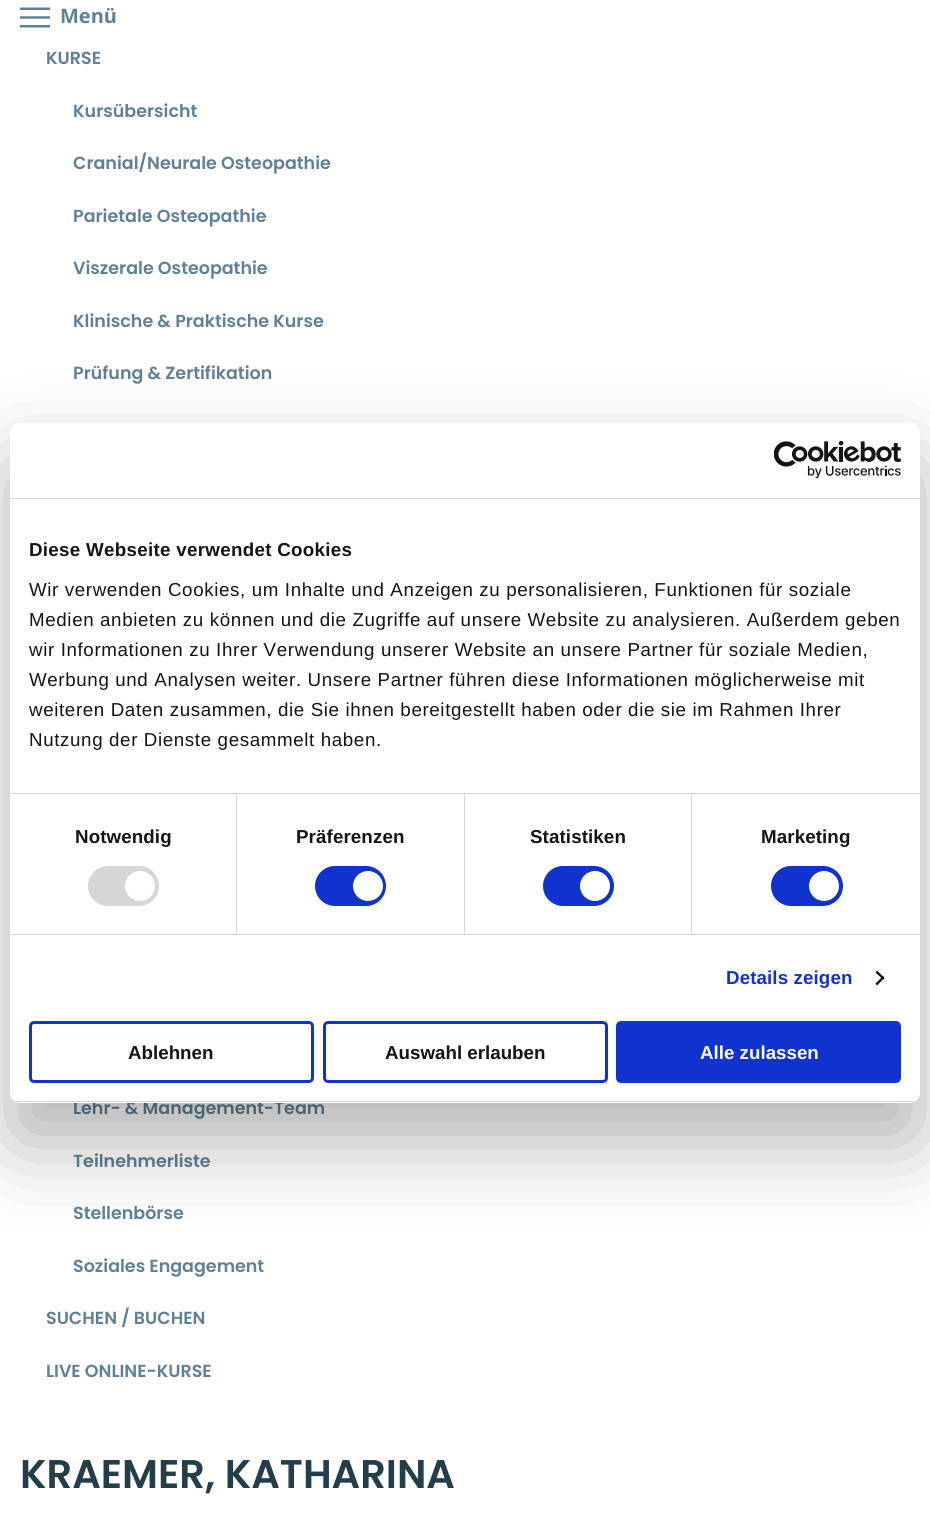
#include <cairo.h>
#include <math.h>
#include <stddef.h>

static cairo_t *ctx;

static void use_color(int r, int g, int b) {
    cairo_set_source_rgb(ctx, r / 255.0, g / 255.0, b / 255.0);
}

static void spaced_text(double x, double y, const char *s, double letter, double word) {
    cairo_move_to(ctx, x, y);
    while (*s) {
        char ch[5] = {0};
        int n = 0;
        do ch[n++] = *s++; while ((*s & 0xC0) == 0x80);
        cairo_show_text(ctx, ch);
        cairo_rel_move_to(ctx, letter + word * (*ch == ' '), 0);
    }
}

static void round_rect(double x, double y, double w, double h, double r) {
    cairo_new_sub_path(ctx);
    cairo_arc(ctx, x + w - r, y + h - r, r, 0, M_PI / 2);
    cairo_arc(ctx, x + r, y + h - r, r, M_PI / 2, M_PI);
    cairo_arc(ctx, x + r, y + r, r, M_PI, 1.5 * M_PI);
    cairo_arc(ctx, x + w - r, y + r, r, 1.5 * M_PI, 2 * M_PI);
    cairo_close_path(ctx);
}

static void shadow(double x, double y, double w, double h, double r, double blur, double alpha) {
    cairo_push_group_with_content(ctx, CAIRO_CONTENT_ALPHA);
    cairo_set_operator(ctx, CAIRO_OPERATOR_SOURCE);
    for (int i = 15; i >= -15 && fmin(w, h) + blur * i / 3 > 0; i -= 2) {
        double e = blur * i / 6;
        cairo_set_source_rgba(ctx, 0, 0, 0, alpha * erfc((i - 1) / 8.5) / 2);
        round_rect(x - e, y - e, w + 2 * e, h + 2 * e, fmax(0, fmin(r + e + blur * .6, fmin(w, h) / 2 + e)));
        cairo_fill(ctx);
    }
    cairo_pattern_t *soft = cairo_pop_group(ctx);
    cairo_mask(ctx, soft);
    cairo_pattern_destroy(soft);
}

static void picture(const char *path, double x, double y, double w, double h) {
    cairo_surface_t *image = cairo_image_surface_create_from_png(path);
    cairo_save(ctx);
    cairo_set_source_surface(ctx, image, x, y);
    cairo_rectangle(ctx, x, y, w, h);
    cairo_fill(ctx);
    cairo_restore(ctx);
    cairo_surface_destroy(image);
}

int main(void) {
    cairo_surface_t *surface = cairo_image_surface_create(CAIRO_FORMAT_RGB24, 930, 1523);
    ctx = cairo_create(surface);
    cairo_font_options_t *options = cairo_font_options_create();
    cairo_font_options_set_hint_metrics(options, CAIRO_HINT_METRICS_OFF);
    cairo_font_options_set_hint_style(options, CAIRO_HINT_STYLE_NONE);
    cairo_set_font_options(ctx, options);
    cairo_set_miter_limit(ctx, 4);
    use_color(255, 255, 255);
    cairo_paint(ctx);
    picture("img1.png", 20, 7, 30, 21);
    cairo_select_font_face(ctx, "Open Sans", CAIRO_FONT_SLANT_NORMAL, CAIRO_FONT_WEIGHT_BOLD);
    cairo_set_font_size(ctx, 20);
    use_color(95, 129, 151);
    cairo_move_to(ctx, 60, 23);
    cairo_show_text(ctx, "Menü");
    cairo_select_font_face(ctx, "Poppins SemiBold", CAIRO_FONT_SLANT_NORMAL, CAIRO_FONT_WEIGHT_NORMAL);
    cairo_set_font_size(ctx, 17.5);
    cairo_move_to(ctx, 46, 64);
    cairo_show_text(ctx, "KURSE");
    cairo_move_to(ctx, 73, 117);
    cairo_show_text(ctx, "Kursübersicht");
    cairo_move_to(ctx, 73, 169);
    cairo_show_text(ctx, "Cranial/Neurale Osteopathie");
    cairo_move_to(ctx, 73, 222);
    cairo_show_text(ctx, "Parietale Osteopathie");
    cairo_move_to(ctx, 73, 274);
    cairo_show_text(ctx, "Viszerale Osteopathie");
    cairo_move_to(ctx, 73, 327);
    cairo_show_text(ctx, "Klinische & Praktische Kurse");
    cairo_move_to(ctx, 73, 379);
    cairo_show_text(ctx, "Prüfung & Zertifikation");
    cairo_move_to(ctx, 73, 1114);
    cairo_show_text(ctx, "Lehr- & Management-Team");
    cairo_move_to(ctx, 73, 1167);
    cairo_show_text(ctx, "Teilnehmerliste");
    cairo_move_to(ctx, 73, 1219);
    cairo_show_text(ctx, "Stellenbörse");
    cairo_move_to(ctx, 73, 1272);
    cairo_show_text(ctx, "Soziales Engagement");
    cairo_move_to(ctx, 46, 1324);
    cairo_show_text(ctx, "SUCHEN / BUCHEN");
    cairo_move_to(ctx, 46, 1377);
    cairo_show_text(ctx, "LIVE ONLINE-KURSE");
    cairo_set_font_size(ctx, 40);
    use_color(35, 61, 73);
    cairo_move_to(ctx, 20, 1488);
    cairo_show_text(ctx, "KRAEMER, KATHARINA");
    use_color(0, 0, 0);
    shadow(10, 463, 910, 680, 10, 42.5, 0.3);
    use_color(255, 255, 255);
    round_rect(10, 423, 910, 680, 10);
    cairo_fill(ctx);
    use_color(214, 214, 214);
    cairo_rectangle(ctx, 10, 498, 910, 1);
    cairo_fill(ctx);
    picture("img2.png", 774, 441, 127, 38);
    cairo_rectangle(ctx, 10, 793, 910, 1);
    cairo_fill(ctx);
    cairo_select_font_face(ctx, "Liberation Sans", CAIRO_FONT_SLANT_NORMAL, CAIRO_FONT_WEIGHT_BOLD);
    cairo_set_font_size(ctx, 18.75);
    use_color(20, 20, 20);
    spaced_text(29, 556, "Diese Webseite verwendet Cookies", 0.3, 0);
    cairo_select_font_face(ctx, "Liberation Sans", CAIRO_FONT_SLANT_NORMAL, CAIRO_FONT_WEIGHT_NORMAL);
    spaced_text(29, 596, "Wir verwenden Cookies, um Inhalte und Anzeigen zu personalisieren, Funktionen für soziale", 0.62, 0);
    spaced_text(29, 626, "Medien anbieten zu können und die Zugriffe auf unsere Website zu analysieren. Außerdem geben", 0.62, 0);
    spaced_text(29, 656, "wir Informationen zu Ihrer Verwendung unserer Website an unsere Partner für soziale Medien,", 0.62, 0);
    spaced_text(29, 686, "Werbung und Analysen weiter. Unsere Partner führen diese Informationen möglicherweise mit", 0.62, 0);
    spaced_text(29, 716, "weiteren Daten zusammen, die Sie ihnen bereitgestellt haben oder die sie im Rahmen Ihrer", 0.62, 0);
    spaced_text(29, 746, "Nutzung der Dienste gesammelt haben.", 0.62, 0);
    use_color(214, 214, 214);
    cairo_rectangle(ctx, 10, 934, 910, 1);
    cairo_fill(ctx);
    cairo_rectangle(ctx, 236, 794, 1, 140);
    cairo_fill(ctx);
    cairo_select_font_face(ctx, "Liberation Sans", CAIRO_FONT_SLANT_NORMAL, CAIRO_FONT_WEIGHT_BOLD);
    use_color(20, 20, 20);
    spaced_text(75, 843, "Notwendig", 0.1, 0);
    use_color(214, 214, 214);
    round_rect(88, 866, 71, 40, 20);
    cairo_fill(ctx);
    use_color(255, 255, 255);
    cairo_arc(ctx, 140, 886, 15, 0, 2 * M_PI);
    cairo_fill(ctx);
    use_color(214, 214, 214);
    cairo_rectangle(ctx, 464, 794, 1, 140);
    cairo_fill(ctx);
    use_color(20, 20, 20);
    spaced_text(296, 843, "Präferenzen", 0.1, 0);
    use_color(16, 50, 207);
    round_rect(315, 866, 71, 40, 20);
    cairo_fill(ctx);
    use_color(255, 255, 255);
    cairo_arc(ctx, 368, 886, 15, 0, 2 * M_PI);
    cairo_fill(ctx);
    use_color(214, 214, 214);
    cairo_rectangle(ctx, 691, 794, 1, 140);
    cairo_fill(ctx);
    use_color(20, 20, 20);
    spaced_text(530, 843, "Statistiken", 0.1, 0);
    use_color(16, 50, 207);
    round_rect(543, 866, 71, 40, 20);
    cairo_fill(ctx);
    use_color(255, 255, 255);
    cairo_arc(ctx, 595, 886, 15, 0, 2 * M_PI);
    cairo_fill(ctx);
    use_color(20, 20, 20);
    spaced_text(761, 843, "Marketing", 0.1, 0);
    use_color(16, 50, 207);
    round_rect(771, 866, 72, 40, 20);
    cairo_fill(ctx);
    use_color(255, 255, 255);
    cairo_arc(ctx, 824, 886, 15, 0, 2 * M_PI);
    cairo_fill(ctx);
    use_color(16, 50, 207);
    spaced_text(726, 984, "Details zeigen", 0.1, 0);
    use_color(20, 20, 20);
    cairo_new_path(ctx);
    cairo_move_to(ctx, 877, 970.5);
    cairo_line_to(ctx, 884.5, 978);
    cairo_line_to(ctx, 883, 979.5);
    cairo_line_to(ctx, 875.5, 972.5);
    cairo_close_path(ctx);
    cairo_fill(ctx);
    cairo_new_path(ctx);
    cairo_move_to(ctx, 883, 976);
    cairo_line_to(ctx, 884.5, 978);
    cairo_line_to(ctx, 877, 985.5);
    cairo_line_to(ctx, 875.5, 983.5);
    cairo_close_path(ctx);
    cairo_fill(ctx);
    cairo_save(ctx);
    round_rect(10, 423, 910, 680, 10);
    cairo_clip(ctx);
    use_color(214, 214, 214);
    cairo_rectangle(ctx, 10, 1101, 910, 1);
    cairo_fill(ctx);
    cairo_restore(ctx);
    round_rect(30.5, 1022.5, 282, 59, 3.5);
    use_color(16, 50, 207);
    cairo_set_line_width(ctx, 3);
    cairo_stroke(ctx);
    use_color(20, 20, 20);
    cairo_move_to(ctx, 128, 1059);
    cairo_show_text(ctx, "Ablehnen");
    round_rect(324.5, 1022.5, 282, 59, 3.5);
    use_color(16, 50, 207);
    cairo_stroke(ctx);
    use_color(20, 20, 20);
    cairo_move_to(ctx, 385, 1059);
    cairo_show_text(ctx, "Auswahl erlauben");
    use_color(16, 50, 207);
    round_rect(617.5, 1022.5, 282, 59, 3.5);
    cairo_fill_preserve(ctx);
    cairo_stroke(ctx);
    use_color(255, 255, 255);
    cairo_move_to(ctx, 700, 1059);
    cairo_show_text(ctx, "Alle zulassen");
    cairo_surface_write_to_png(surface, "result.png");
    cairo_font_options_destroy(options);
    cairo_destroy(ctx);
    cairo_surface_destroy(surface);
    return 0;
}
